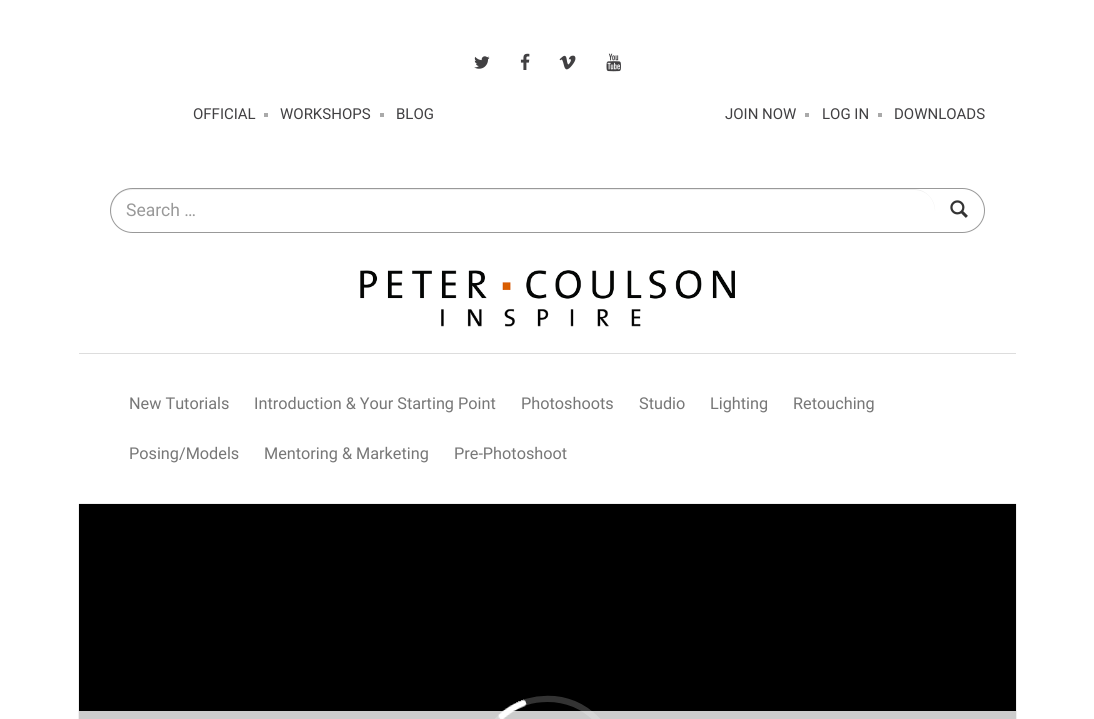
#include <cairo.h>
#include <math.h>
#include <stddef.h>

static cairo_t *ctx;

static void use_color(int r, int g, int b) {
    cairo_set_source_rgb(ctx, r / 255.0, g / 255.0, b / 255.0);
}

static void round_rect(double x, double y, double w, double h, double r) {
    cairo_new_sub_path(ctx);
    cairo_arc(ctx, x + w - r, y + h - r, r, 0, M_PI / 2);
    cairo_arc(ctx, x + r, y + h - r, r, M_PI / 2, M_PI);
    cairo_arc(ctx, x + r, y + r, r, M_PI, 1.5 * M_PI);
    cairo_arc(ctx, x + w - r, y + r, r, 1.5 * M_PI, 2 * M_PI);
    cairo_close_path(ctx);
}

static void picture(const char *path, double x, double y, double w, double h) {
    cairo_surface_t *image = cairo_image_surface_create_from_png(path);
    cairo_save(ctx);
    cairo_set_source_surface(ctx, image, x, y);
    cairo_rectangle(ctx, x, y, w, h);
    cairo_fill(ctx);
    cairo_restore(ctx);
    cairo_surface_destroy(image);
}

int main(void) {
    cairo_surface_t *surface = cairo_image_surface_create(CAIRO_FORMAT_RGB24, 1094, 719);
    ctx = cairo_create(surface);
    cairo_font_options_t *options = cairo_font_options_create();
    cairo_font_options_set_hint_metrics(options, CAIRO_HINT_METRICS_OFF);
    cairo_font_options_set_hint_style(options, CAIRO_HINT_STYLE_NONE);
    cairo_set_font_options(ctx, options);
    cairo_set_miter_limit(ctx, 4);
    use_color(255, 255, 255);
    cairo_paint(ctx);
    picture("img1.png", 474, 56, 16, 13);
    picture("img2.png", 520, 53, 10, 17);
    picture("img3.png", 559, 55, 17, 15);
    picture("img4.png", 606, 53, 15, 19);
    cairo_select_font_face(ctx, "Roboto", CAIRO_FONT_SLANT_NORMAL, CAIRO_FONT_WEIGHT_NORMAL);
    cairo_set_font_size(ctx, 15);
    use_color(65, 64, 66);
    cairo_move_to(ctx, 193, 119);
    cairo_show_text(ctx, "OFFICIAL");
    use_color(170, 170, 170);
    cairo_rectangle(ctx, 264, 113, 4, 4);
    cairo_fill(ctx);
    use_color(65, 64, 66);
    cairo_move_to(ctx, 280, 119);
    cairo_show_text(ctx, "WORKSHOPS");
    use_color(170, 170, 170);
    cairo_rectangle(ctx, 380, 113, 4, 4);
    cairo_fill(ctx);
    use_color(65, 64, 66);
    cairo_move_to(ctx, 396, 119);
    cairo_show_text(ctx, "BLOG");
    cairo_move_to(ctx, 725, 119);
    cairo_show_text(ctx, "JOIN NOW");
    use_color(170, 170, 170);
    cairo_rectangle(ctx, 805, 113, 4, 4);
    cairo_fill(ctx);
    use_color(65, 64, 66);
    cairo_move_to(ctx, 822, 119);
    cairo_show_text(ctx, "LOG IN");
    use_color(170, 170, 170);
    cairo_rectangle(ctx, 878, 113, 4, 4);
    cairo_fill(ctx);
    use_color(65, 64, 66);
    cairo_move_to(ctx, 894, 119);
    cairo_show_text(ctx, "DOWNLOADS");
    round_rect(110.5, 188.5, 874, 44, 22);
    use_color(153, 153, 153);
    cairo_set_line_width(ctx, 1);
    cairo_stroke(ctx);
    cairo_set_source_rgba(ctx, 0, 0, 0, 0.07);
    cairo_new_path(ctx);
    cairo_move_to(ctx, 132, 190);
    cairo_line_to(ctx, 914, 190);
    cairo_curve_to(ctx, 928, 190, 935, 201, 935, 212);
    cairo_curve_to(ctx, 936, 200, 926, 189, 914, 189);
    cairo_line_to(ctx, 132, 189);
    cairo_curve_to(ctx, 128, 189, 124, 190, 120, 193);
    cairo_curve_to(ctx, 111, 199, 109, 211, 113, 220);
    cairo_curve_to(ctx, 108, 207, 115, 190, 132, 190);
    cairo_close_path(ctx);
    cairo_fill(ctx);
    cairo_set_font_size(ctx, 17.5);
    use_color(153, 153, 153);
    cairo_move_to(ctx, 126, 216);
    cairo_show_text(ctx, "Search …");
    picture("img5.png", 950, 200, 18, 18);
    picture("img6.png", 360, 270, 375, 57);
    use_color(221, 221, 221);
    cairo_rectangle(ctx, 79, 353, 937, 1);
    cairo_fill(ctx);
    cairo_set_font_size(ctx, 16.25);
    use_color(119, 119, 119);
    cairo_move_to(ctx, 129, 409);
    cairo_show_text(ctx, "New Tutorials");
    cairo_move_to(ctx, 254, 409);
    cairo_show_text(ctx, "Introduction & Your Starting Point");
    cairo_move_to(ctx, 521, 409);
    cairo_show_text(ctx, "Photoshoots");
    cairo_move_to(ctx, 639, 409);
    cairo_show_text(ctx, "Studio");
    cairo_move_to(ctx, 710, 409);
    cairo_show_text(ctx, "Lighting");
    cairo_move_to(ctx, 793, 409);
    cairo_show_text(ctx, "Retouching");
    cairo_move_to(ctx, 129, 459);
    cairo_show_text(ctx, "Posing/Models");
    cairo_move_to(ctx, 264, 459);
    cairo_show_text(ctx, "Mentoring & Marketing");
    cairo_move_to(ctx, 454, 459);
    cairo_show_text(ctx, "Pre-Photoshoot");
    picture("img7.png", 78, 503, 939, 216);
    cairo_set_source_rgba(ctx, 1, 1, 1, 0.8);
    cairo_rectangle(ctx, 79, 711, 937, 8);
    cairo_fill(ctx);
    cairo_surface_write_to_png(surface, "result.png");
    cairo_font_options_destroy(options);
    cairo_destroy(ctx);
    cairo_surface_destroy(surface);
    return 0;
}
